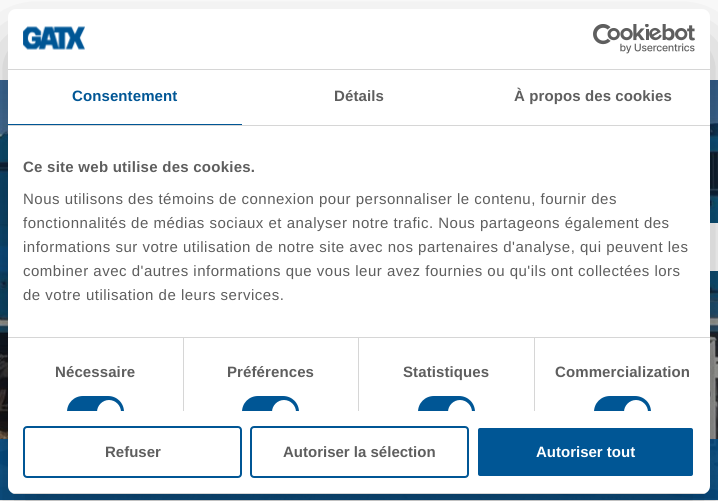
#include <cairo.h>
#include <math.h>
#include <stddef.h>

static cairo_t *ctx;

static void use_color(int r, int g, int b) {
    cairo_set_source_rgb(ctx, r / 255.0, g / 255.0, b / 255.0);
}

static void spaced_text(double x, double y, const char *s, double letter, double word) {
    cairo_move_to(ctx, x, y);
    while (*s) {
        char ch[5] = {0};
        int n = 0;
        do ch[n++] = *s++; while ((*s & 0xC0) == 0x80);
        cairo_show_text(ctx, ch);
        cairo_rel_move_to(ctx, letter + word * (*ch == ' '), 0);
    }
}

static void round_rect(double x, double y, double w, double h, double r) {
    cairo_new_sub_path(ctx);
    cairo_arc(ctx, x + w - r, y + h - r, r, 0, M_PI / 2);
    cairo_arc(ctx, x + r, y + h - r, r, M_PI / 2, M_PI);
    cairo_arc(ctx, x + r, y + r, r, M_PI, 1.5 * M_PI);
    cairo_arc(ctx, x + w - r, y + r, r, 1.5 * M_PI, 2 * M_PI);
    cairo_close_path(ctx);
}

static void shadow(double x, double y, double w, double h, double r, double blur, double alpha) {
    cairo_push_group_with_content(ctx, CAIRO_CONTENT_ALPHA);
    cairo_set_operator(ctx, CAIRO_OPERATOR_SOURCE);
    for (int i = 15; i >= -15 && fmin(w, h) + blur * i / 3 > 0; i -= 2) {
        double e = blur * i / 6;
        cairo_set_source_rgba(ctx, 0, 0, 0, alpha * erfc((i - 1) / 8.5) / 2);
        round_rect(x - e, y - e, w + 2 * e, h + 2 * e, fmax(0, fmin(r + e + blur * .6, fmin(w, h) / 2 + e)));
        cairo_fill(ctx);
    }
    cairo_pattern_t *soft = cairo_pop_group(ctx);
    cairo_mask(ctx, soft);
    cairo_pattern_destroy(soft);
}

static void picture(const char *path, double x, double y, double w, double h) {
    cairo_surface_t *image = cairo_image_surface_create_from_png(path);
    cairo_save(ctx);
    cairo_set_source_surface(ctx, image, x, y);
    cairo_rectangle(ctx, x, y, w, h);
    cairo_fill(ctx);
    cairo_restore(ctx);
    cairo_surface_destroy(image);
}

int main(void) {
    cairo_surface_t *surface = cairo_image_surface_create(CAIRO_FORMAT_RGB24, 718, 501);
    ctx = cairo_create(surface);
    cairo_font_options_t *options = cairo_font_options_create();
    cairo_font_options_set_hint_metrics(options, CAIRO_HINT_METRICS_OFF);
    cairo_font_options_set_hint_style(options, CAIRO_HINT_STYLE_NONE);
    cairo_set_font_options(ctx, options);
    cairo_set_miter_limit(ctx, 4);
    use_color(255, 255, 255);
    cairo_paint(ctx);
    picture("img1.png", 0, 80, 718, 420);
    cairo_set_source_rgba(ctx, 0, 0.333, 0.588, 0.85);
    cairo_rectangle(ctx, 0, 439, 718, 61);
    cairo_fill(ctx);
    use_color(249, 249, 249);
    cairo_rectangle(ctx, 0, 500, 718, 1);
    cairo_fill(ctx);
    use_color(255, 255, 255);
    cairo_rectangle(ctx, 710, 223, 8, 48);
    cairo_fill(ctx);
    use_color(0, 0, 0);
    shadow(8, 41, 702, 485, 8, 34, 0.3);
    use_color(255, 255, 255);
    round_rect(8, 9, 702, 485, 8);
    cairo_fill(ctx);
    use_color(214, 214, 214);
    cairo_rectangle(ctx, 8, 69, 702, 1);
    cairo_fill(ctx);
    picture("img2.png", 23, 26, 62, 24);
    picture("img3.png", 593, 24, 102, 30);
    cairo_rectangle(ctx, 8, 125, 702, 1);
    cairo_fill(ctx);
    use_color(0, 86, 149);
    cairo_rectangle(ctx, 8, 124, 234, 1);
    cairo_fill(ctx);
    cairo_select_font_face(ctx, "Liberation Sans", CAIRO_FONT_SLANT_NORMAL, CAIRO_FONT_WEIGHT_BOLD);
    cairo_set_font_size(ctx, 15);
    spaced_text(72, 101, "Consentement", 0.1, 0);
    use_color(94, 94, 94);
    spaced_text(334, 101, "Détails", 0.1, 0);
    spaced_text(514, 101, "À propos des cookies", 0.1, 0);
    use_color(214, 214, 214);
    cairo_rectangle(ctx, 8, 337, 702, 1);
    cairo_fill(ctx);
    use_color(94, 94, 94);
    spaced_text(23, 172, "Ce site web utilise des cookies.", 0.25, 0);
    cairo_select_font_face(ctx, "Liberation Sans", CAIRO_FONT_SLANT_NORMAL, CAIRO_FONT_WEIGHT_NORMAL);
    spaced_text(23, 204, "Nous utilisons des témoins de connexion pour personnaliser le contenu, fournir des", 0.5, 0);
    spaced_text(23, 228, "fonctionnalités de médias sociaux et analyser notre trafic. Nous partageons également des", 0.5, 0);
    spaced_text(23, 252, "informations sur votre utilisation de notre site avec nos partenaires d'analyse, qui peuvent les", 0.5, 0);
    spaced_text(23, 276, "combiner avec d'autres informations que vous leur avez fournies ou qu'ils ont collectées lors", 0.5, 0);
    spaced_text(23, 300, "de votre utilisation de leurs services.", 0.5, 0);
    use_color(214, 214, 214);
    cairo_rectangle(ctx, 183, 338, 1, 73);
    cairo_fill(ctx);
    cairo_select_font_face(ctx, "Liberation Sans", CAIRO_FONT_SLANT_NORMAL, CAIRO_FONT_WEIGHT_BOLD);
    use_color(94, 94, 94);
    spaced_text(55, 377, "Nécessaire", 0.1, 0);
    use_color(0, 86, 149);
    cairo_new_path(ctx);
    cairo_move_to(ctx, 83, 396);
    cairo_line_to(ctx, 108, 396);
    cairo_curve_to(ctx, 117, 396, 124, 403, 124, 412);
    cairo_line_to(ctx, 124, 411);
    cairo_line_to(ctx, 67, 411);
    cairo_line_to(ctx, 67, 412);
    cairo_curve_to(ctx, 67, 403, 74, 396, 83, 396);
    cairo_close_path(ctx);
    cairo_fill(ctx);
    use_color(255, 255, 255);
    cairo_new_path(ctx);
    cairo_move_to(ctx, 109, 400);
    cairo_curve_to(ctx, 115.5, 400, 121, 405.5, 121, 412);
    cairo_line_to(ctx, 121, 411);
    cairo_line_to(ctx, 97, 411);
    cairo_line_to(ctx, 97, 412);
    cairo_curve_to(ctx, 97, 405.5, 102.5, 400, 109, 400);
    cairo_close_path(ctx);
    cairo_fill(ctx);
    use_color(214, 214, 214);
    cairo_rectangle(ctx, 358, 338, 1, 73);
    cairo_fill(ctx);
    use_color(94, 94, 94);
    spaced_text(227, 377, "Préférences", 0.1, 0);
    use_color(0, 86, 149);
    cairo_new_path(ctx);
    cairo_move_to(ctx, 258, 396);
    cairo_line_to(ctx, 283, 396);
    cairo_curve_to(ctx, 292, 396, 299, 403, 299, 412);
    cairo_line_to(ctx, 299, 411);
    cairo_line_to(ctx, 242, 411);
    cairo_line_to(ctx, 242, 412);
    cairo_curve_to(ctx, 242, 403, 249, 396, 258, 396);
    cairo_close_path(ctx);
    cairo_fill(ctx);
    use_color(255, 255, 255);
    cairo_new_path(ctx);
    cairo_move_to(ctx, 284, 400);
    cairo_curve_to(ctx, 290.5, 400, 296, 405.5, 296, 412);
    cairo_line_to(ctx, 296, 411);
    cairo_line_to(ctx, 272, 411);
    cairo_line_to(ctx, 272, 412);
    cairo_curve_to(ctx, 272, 405.5, 277.5, 400, 284, 400);
    cairo_close_path(ctx);
    cairo_fill(ctx);
    use_color(214, 214, 214);
    cairo_rectangle(ctx, 534, 338, 1, 73);
    cairo_fill(ctx);
    use_color(94, 94, 94);
    spaced_text(403, 377, "Statistiques", 0.1, 0);
    use_color(0, 86, 149);
    cairo_new_path(ctx);
    cairo_move_to(ctx, 434, 396);
    cairo_line_to(ctx, 459, 396);
    cairo_curve_to(ctx, 468, 396, 475, 403, 475, 412);
    cairo_line_to(ctx, 475, 411);
    cairo_line_to(ctx, 418, 411);
    cairo_line_to(ctx, 418, 412);
    cairo_curve_to(ctx, 418, 403, 425, 396, 434, 396);
    cairo_close_path(ctx);
    cairo_fill(ctx);
    use_color(255, 255, 255);
    cairo_new_path(ctx);
    cairo_move_to(ctx, 460, 400);
    cairo_curve_to(ctx, 466.5, 400, 472, 405.5, 472, 412);
    cairo_line_to(ctx, 472, 411);
    cairo_line_to(ctx, 448, 411);
    cairo_line_to(ctx, 448, 412);
    cairo_curve_to(ctx, 448, 405.5, 453.5, 400, 460, 400);
    cairo_close_path(ctx);
    cairo_fill(ctx);
    use_color(94, 94, 94);
    spaced_text(555, 377, "Commercialization", 0.1, 0);
    use_color(0, 86, 149);
    cairo_new_path(ctx);
    cairo_move_to(ctx, 610, 396);
    cairo_line_to(ctx, 635, 396);
    cairo_curve_to(ctx, 644, 396, 651, 403, 651, 412);
    cairo_line_to(ctx, 651, 411);
    cairo_line_to(ctx, 594, 411);
    cairo_line_to(ctx, 594, 412);
    cairo_curve_to(ctx, 594, 403, 601, 396, 610, 396);
    cairo_close_path(ctx);
    cairo_fill(ctx);
    use_color(255, 255, 255);
    cairo_new_path(ctx);
    cairo_move_to(ctx, 636, 400);
    cairo_curve_to(ctx, 642.5, 400, 648, 405.5, 648, 412);
    cairo_line_to(ctx, 648, 411);
    cairo_line_to(ctx, 624, 411);
    cairo_line_to(ctx, 624, 412);
    cairo_curve_to(ctx, 624, 405.5, 629.5, 400, 636, 400);
    cairo_close_path(ctx);
    cairo_fill(ctx);
    cairo_save(ctx);
    round_rect(8, 9, 702, 485, 8);
    cairo_clip(ctx);
    use_color(214, 214, 214);
    cairo_rectangle(ctx, 8, 493, 702, 1);
    cairo_fill(ctx);
    cairo_restore(ctx);
    round_rect(24, 427, 217, 50, 3);
    use_color(0, 86, 149);
    cairo_stroke(ctx);
    use_color(94, 94, 94);
    cairo_move_to(ctx, 105, 457);
    cairo_show_text(ctx, "Refuser");
    round_rect(251, 427, 217, 50, 3);
    use_color(0, 86, 149);
    cairo_stroke(ctx);
    use_color(94, 94, 94);
    cairo_move_to(ctx, 283, 457);
    cairo_show_text(ctx, "Autoriser la sélection");
    use_color(0, 86, 149);
    round_rect(477, 427, 217, 50, 3);
    cairo_fill_preserve(ctx);
    use_color(255, 255, 255);
    cairo_stroke(ctx);
    cairo_move_to(ctx, 536, 457);
    cairo_show_text(ctx, "Autoriser tout");
    cairo_surface_write_to_png(surface, "result.png");
    cairo_font_options_destroy(options);
    cairo_destroy(ctx);
    cairo_surface_destroy(surface);
    return 0;
}
